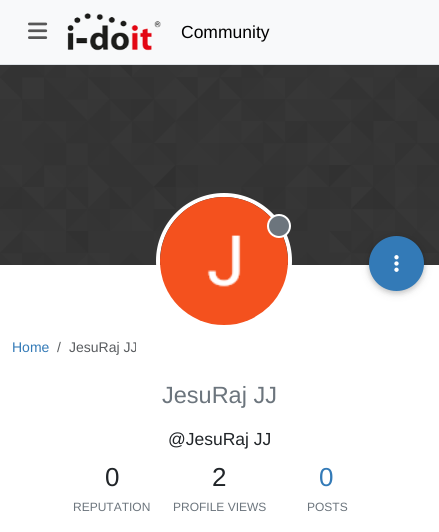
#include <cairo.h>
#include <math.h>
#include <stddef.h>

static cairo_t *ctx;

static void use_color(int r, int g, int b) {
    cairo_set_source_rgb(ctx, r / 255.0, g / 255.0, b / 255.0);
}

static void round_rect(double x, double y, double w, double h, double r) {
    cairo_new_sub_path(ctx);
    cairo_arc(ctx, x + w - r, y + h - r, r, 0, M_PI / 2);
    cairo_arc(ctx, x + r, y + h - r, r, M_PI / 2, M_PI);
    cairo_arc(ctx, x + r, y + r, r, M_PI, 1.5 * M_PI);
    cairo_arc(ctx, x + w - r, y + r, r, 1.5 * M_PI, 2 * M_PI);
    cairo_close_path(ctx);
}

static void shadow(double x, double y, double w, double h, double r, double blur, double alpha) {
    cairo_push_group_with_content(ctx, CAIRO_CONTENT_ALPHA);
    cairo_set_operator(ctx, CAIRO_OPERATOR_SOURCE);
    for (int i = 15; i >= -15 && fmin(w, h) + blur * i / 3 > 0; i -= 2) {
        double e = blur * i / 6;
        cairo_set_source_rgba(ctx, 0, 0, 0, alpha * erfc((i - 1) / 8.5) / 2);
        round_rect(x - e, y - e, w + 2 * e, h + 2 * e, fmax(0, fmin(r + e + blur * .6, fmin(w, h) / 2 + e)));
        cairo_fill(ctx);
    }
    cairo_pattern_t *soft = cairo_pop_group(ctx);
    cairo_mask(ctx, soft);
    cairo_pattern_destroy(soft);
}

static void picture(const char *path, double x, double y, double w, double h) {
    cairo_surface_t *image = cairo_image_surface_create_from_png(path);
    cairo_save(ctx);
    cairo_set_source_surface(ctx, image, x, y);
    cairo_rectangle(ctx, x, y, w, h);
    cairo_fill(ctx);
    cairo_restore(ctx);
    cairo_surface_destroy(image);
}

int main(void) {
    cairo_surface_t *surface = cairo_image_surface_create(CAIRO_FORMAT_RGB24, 439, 532);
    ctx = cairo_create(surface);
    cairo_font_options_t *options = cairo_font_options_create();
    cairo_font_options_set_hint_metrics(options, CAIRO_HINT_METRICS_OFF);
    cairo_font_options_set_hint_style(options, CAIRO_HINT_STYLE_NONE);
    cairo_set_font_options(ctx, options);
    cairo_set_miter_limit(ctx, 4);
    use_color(255, 255, 255);
    cairo_paint(ctx);
    use_color(248, 249, 250);
    cairo_rectangle(ctx, 0, 0, 439, 64);
    cairo_fill(ctx);
    use_color(222, 226, 230);
    cairo_rectangle(ctx, 0, 64, 439, 1);
    cairo_fill(ctx);
    picture("img1.png", 28, 22, 20, 17);
    picture("img2.png", 67, 13, 94, 38);
    cairo_select_font_face(ctx, "Liberation Sans", CAIRO_FONT_SLANT_NORMAL, CAIRO_FONT_WEIGHT_NORMAL);
    cairo_set_font_size(ctx, 17.5);
    use_color(0, 0, 0);
    cairo_move_to(ctx, 181, 38);
    cairo_show_text(ctx, "Community");
    picture("img3.png", 0, 65, 439, 200);
    cairo_arc(ctx, 224, 261, 66, 0, 2 * M_PI);
    use_color(255, 255, 255);
    cairo_set_line_width(ctx, 4);
    cairo_stroke(ctx);
    picture("img4.png", 160, 197, 128, 128);
    use_color(108, 117, 125);
    cairo_arc(ctx, 279, 226, 11, 0, 2 * M_PI);
    cairo_fill_preserve(ctx);
    use_color(255, 255, 255);
    cairo_set_line_width(ctx, 2);
    cairo_stroke(ctx);
    use_color(0, 0, 0);
    shadow(369, 238, 55, 55, 27.5, 5, 0.12);
    shadow(369, 238, 55, 55, 27.5, 2.5, 0.16);
    use_color(51, 122, 183);
    cairo_arc(ctx, 396.5, 263.5, 27.5, 0, 2 * M_PI);
    cairo_fill(ctx);
    picture("img5.png", 394, 255, 5, 17);
    cairo_set_font_size(ctx, 14);
    cairo_move_to(ctx, 12, 352);
    cairo_show_text(ctx, "Home");
    use_color(89, 92, 95);
    cairo_move_to(ctx, 57, 352);
    cairo_show_text(ctx, "/");
    cairo_move_to(ctx, 69, 352);
    cairo_show_text(ctx, "JesuRaj JJ");
    cairo_set_font_size(ctx, 23.5);
    use_color(108, 117, 125);
    cairo_move_to(ctx, 162, 403);
    cairo_show_text(ctx, "JesuRaj JJ");
    cairo_set_font_size(ctx, 17.5);
    use_color(33, 37, 41);
    cairo_move_to(ctx, 168, 445);
    cairo_show_text(ctx, "@JesuRaj JJ");
    cairo_set_font_size(ctx, 26);
    cairo_move_to(ctx, 105, 486);
    cairo_show_text(ctx, "0");
    cairo_set_font_size(ctx, 12);
    use_color(108, 117, 125);
    cairo_move_to(ctx, 73, 511);
    cairo_show_text(ctx, "REPUTATION");
    cairo_set_font_size(ctx, 26);
    use_color(33, 37, 41);
    cairo_move_to(ctx, 212, 486);
    cairo_show_text(ctx, "2");
    cairo_set_font_size(ctx, 12);
    use_color(108, 117, 125);
    cairo_move_to(ctx, 173, 511);
    cairo_show_text(ctx, "PROFILE VIEWS");
    cairo_set_font_size(ctx, 26);
    use_color(51, 122, 183);
    cairo_move_to(ctx, 319, 486);
    cairo_show_text(ctx, "0");
    cairo_set_font_size(ctx, 12);
    use_color(108, 117, 125);
    cairo_move_to(ctx, 307, 511);
    cairo_show_text(ctx, "POSTS");
    cairo_surface_write_to_png(surface, "result.png");
    cairo_font_options_destroy(options);
    cairo_destroy(ctx);
    cairo_surface_destroy(surface);
    return 0;
}
